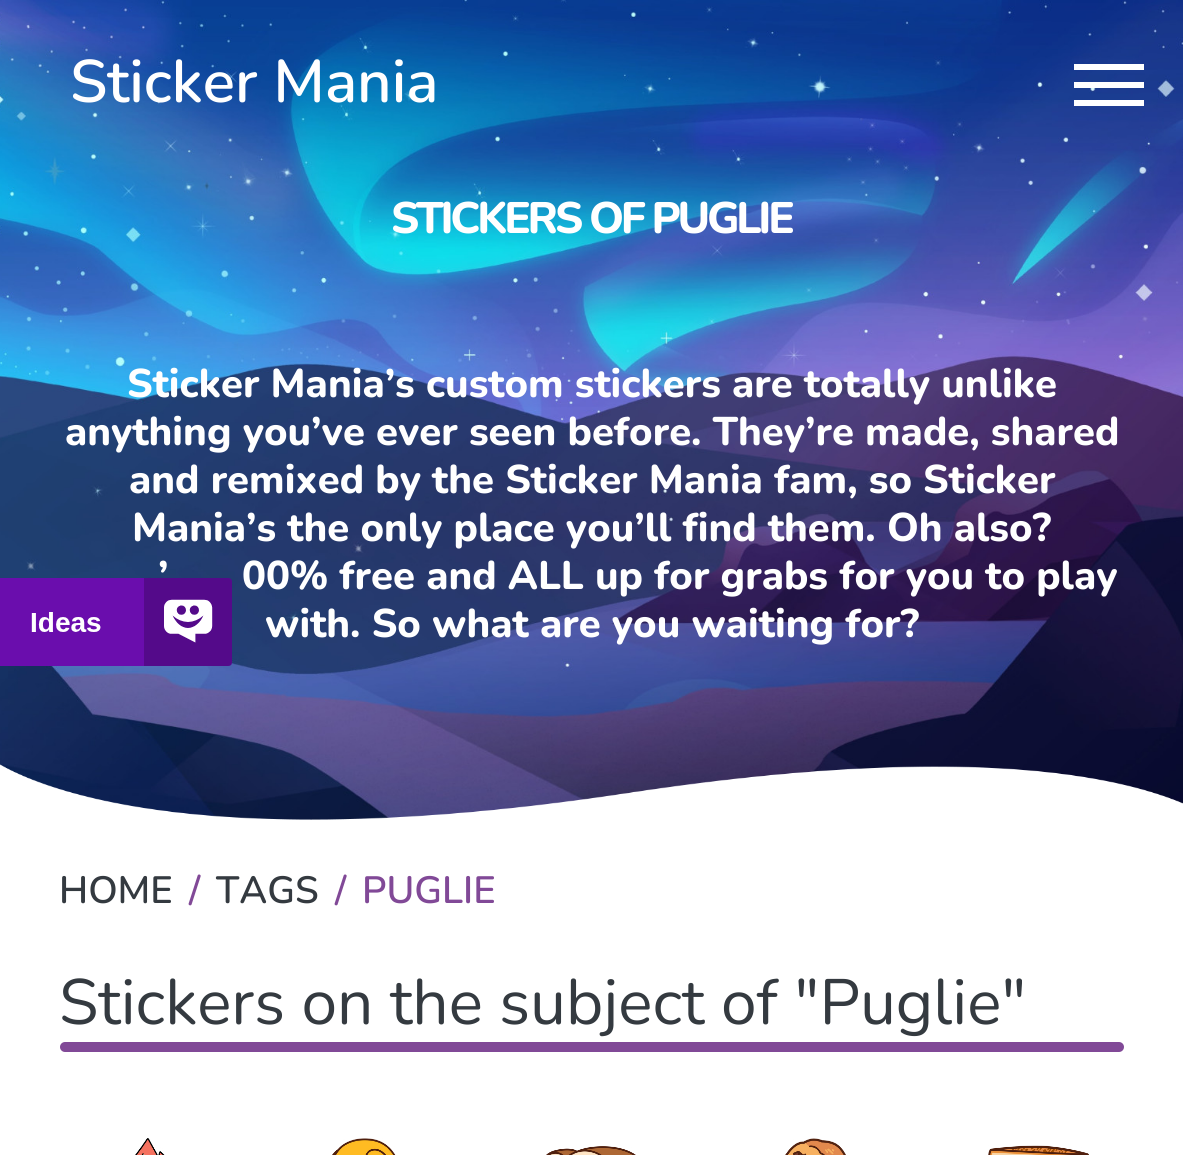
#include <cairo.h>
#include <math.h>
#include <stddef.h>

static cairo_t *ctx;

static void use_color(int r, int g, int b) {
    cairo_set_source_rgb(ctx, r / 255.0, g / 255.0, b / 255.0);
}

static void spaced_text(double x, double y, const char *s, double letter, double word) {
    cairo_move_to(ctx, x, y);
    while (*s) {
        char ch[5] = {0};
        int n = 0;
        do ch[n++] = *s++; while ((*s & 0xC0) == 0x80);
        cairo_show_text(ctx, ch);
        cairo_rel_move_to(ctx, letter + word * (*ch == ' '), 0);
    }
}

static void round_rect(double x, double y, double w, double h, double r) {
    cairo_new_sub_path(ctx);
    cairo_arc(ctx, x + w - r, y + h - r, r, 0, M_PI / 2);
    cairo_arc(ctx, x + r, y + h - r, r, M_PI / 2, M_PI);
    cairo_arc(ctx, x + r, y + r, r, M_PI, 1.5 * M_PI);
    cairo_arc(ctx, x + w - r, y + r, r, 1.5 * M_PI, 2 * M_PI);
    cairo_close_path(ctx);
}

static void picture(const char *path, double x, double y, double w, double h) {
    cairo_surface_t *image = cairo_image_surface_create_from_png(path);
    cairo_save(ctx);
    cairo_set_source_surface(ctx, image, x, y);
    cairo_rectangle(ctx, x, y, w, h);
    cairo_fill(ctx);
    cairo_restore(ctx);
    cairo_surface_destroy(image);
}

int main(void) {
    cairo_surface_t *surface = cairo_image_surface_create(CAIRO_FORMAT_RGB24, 1183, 1155);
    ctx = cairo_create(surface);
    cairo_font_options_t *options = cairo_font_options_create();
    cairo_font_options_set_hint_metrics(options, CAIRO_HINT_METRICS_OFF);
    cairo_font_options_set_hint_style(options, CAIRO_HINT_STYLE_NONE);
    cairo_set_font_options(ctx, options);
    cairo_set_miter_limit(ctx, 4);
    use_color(255, 255, 255);
    cairo_paint(ctx);
    picture("img1.png", 0, 0, 1183, 820);
    cairo_select_font_face(ctx, "Nunito SemiBold", CAIRO_FONT_SLANT_NORMAL, CAIRO_FONT_WEIGHT_NORMAL);
    cairo_set_font_size(ctx, 60);
    use_color(255, 255, 255);
    cairo_move_to(ctx, 70, 102);
    cairo_show_text(ctx, "Sticker Mania");
    cairo_rectangle(ctx, 1074, 64, 70, 6);
    cairo_fill(ctx);
    cairo_rectangle(ctx, 1074, 82, 70, 6);
    cairo_fill(ctx);
    cairo_rectangle(ctx, 1074, 100, 70, 6);
    cairo_fill(ctx);
    cairo_select_font_face(ctx, "Nunito ExtraBold", CAIRO_FONT_SLANT_NORMAL, CAIRO_FONT_WEIGHT_NORMAL);
    cairo_set_font_size(ctx, 44);
    spaced_text(391, 233, "STICKERS OF PUGLIE", -3.25, 0);
    cairo_set_font_size(ctx, 40);
    cairo_move_to(ctx, 127, 397);
    cairo_show_text(ctx, "Sticker Mania’s custom stickers are totally unlike");
    cairo_move_to(ctx, 65, 445);
    cairo_show_text(ctx, "anything you’ve ever seen before. They’re made, shared");
    cairo_move_to(ctx, 129, 493);
    cairo_show_text(ctx, "and remixed by the Sticker Mania fam, so Sticker");
    cairo_move_to(ctx, 132, 541);
    cairo_show_text(ctx, "Mania’s the only place you’ll find them. Oh also?");
    cairo_move_to(ctx, 158, 589);
    cairo_show_text(ctx, "’");
    cairo_move_to(ctx, 242, 589);
    cairo_show_text(ctx, "00% free and ALL up for grabs for you to play");
    cairo_move_to(ctx, 265, 637);
    cairo_show_text(ctx, "with. So what are you waiting for?");
    picture("img2.png", 0, 764, 1183, 74);
    picture("img3.png", 0, 578, 232, 88);
    cairo_select_font_face(ctx, "Nunito SemiBold", CAIRO_FONT_SLANT_NORMAL, CAIRO_FONT_WEIGHT_NORMAL);
    cairo_set_font_size(ctx, 38);
    use_color(52, 58, 64);
    cairo_move_to(ctx, 59, 903);
    cairo_show_text(ctx, "HOME");
    use_color(129, 73, 151);
    cairo_move_to(ctx, 189, 903);
    cairo_show_text(ctx, "/");
    use_color(52, 58, 64);
    cairo_move_to(ctx, 216, 903);
    cairo_show_text(ctx, "TAGS");
    use_color(129, 73, 151);
    cairo_move_to(ctx, 335, 903);
    cairo_show_text(ctx, "/");
    cairo_move_to(ctx, 362, 903);
    cairo_show_text(ctx, "PUGLIE");
    cairo_select_font_face(ctx, "Nunito", CAIRO_FONT_SLANT_NORMAL, CAIRO_FONT_WEIGHT_NORMAL);
    cairo_set_font_size(ctx, 64);
    use_color(52, 58, 64);
    cairo_move_to(ctx, 59, 1024);
    cairo_show_text(ctx, "Stickers on the subject of \"Puglie\"");
    use_color(129, 73, 151);
    round_rect(60, 1042, 1064, 10, 5);
    cairo_fill(ctx);
    picture("img4.png", 135, 1138, 30, 17);
    picture("img5.png", 332, 1138, 64, 17);
    picture("img6.png", 546, 1146, 90, 9);
    picture("img7.png", 785, 1138, 61, 17);
    picture("img8.png", 988, 1145, 101, 10);
    cairo_surface_write_to_png(surface, "result.png");
    cairo_font_options_destroy(options);
    cairo_destroy(ctx);
    cairo_surface_destroy(surface);
    return 0;
}
